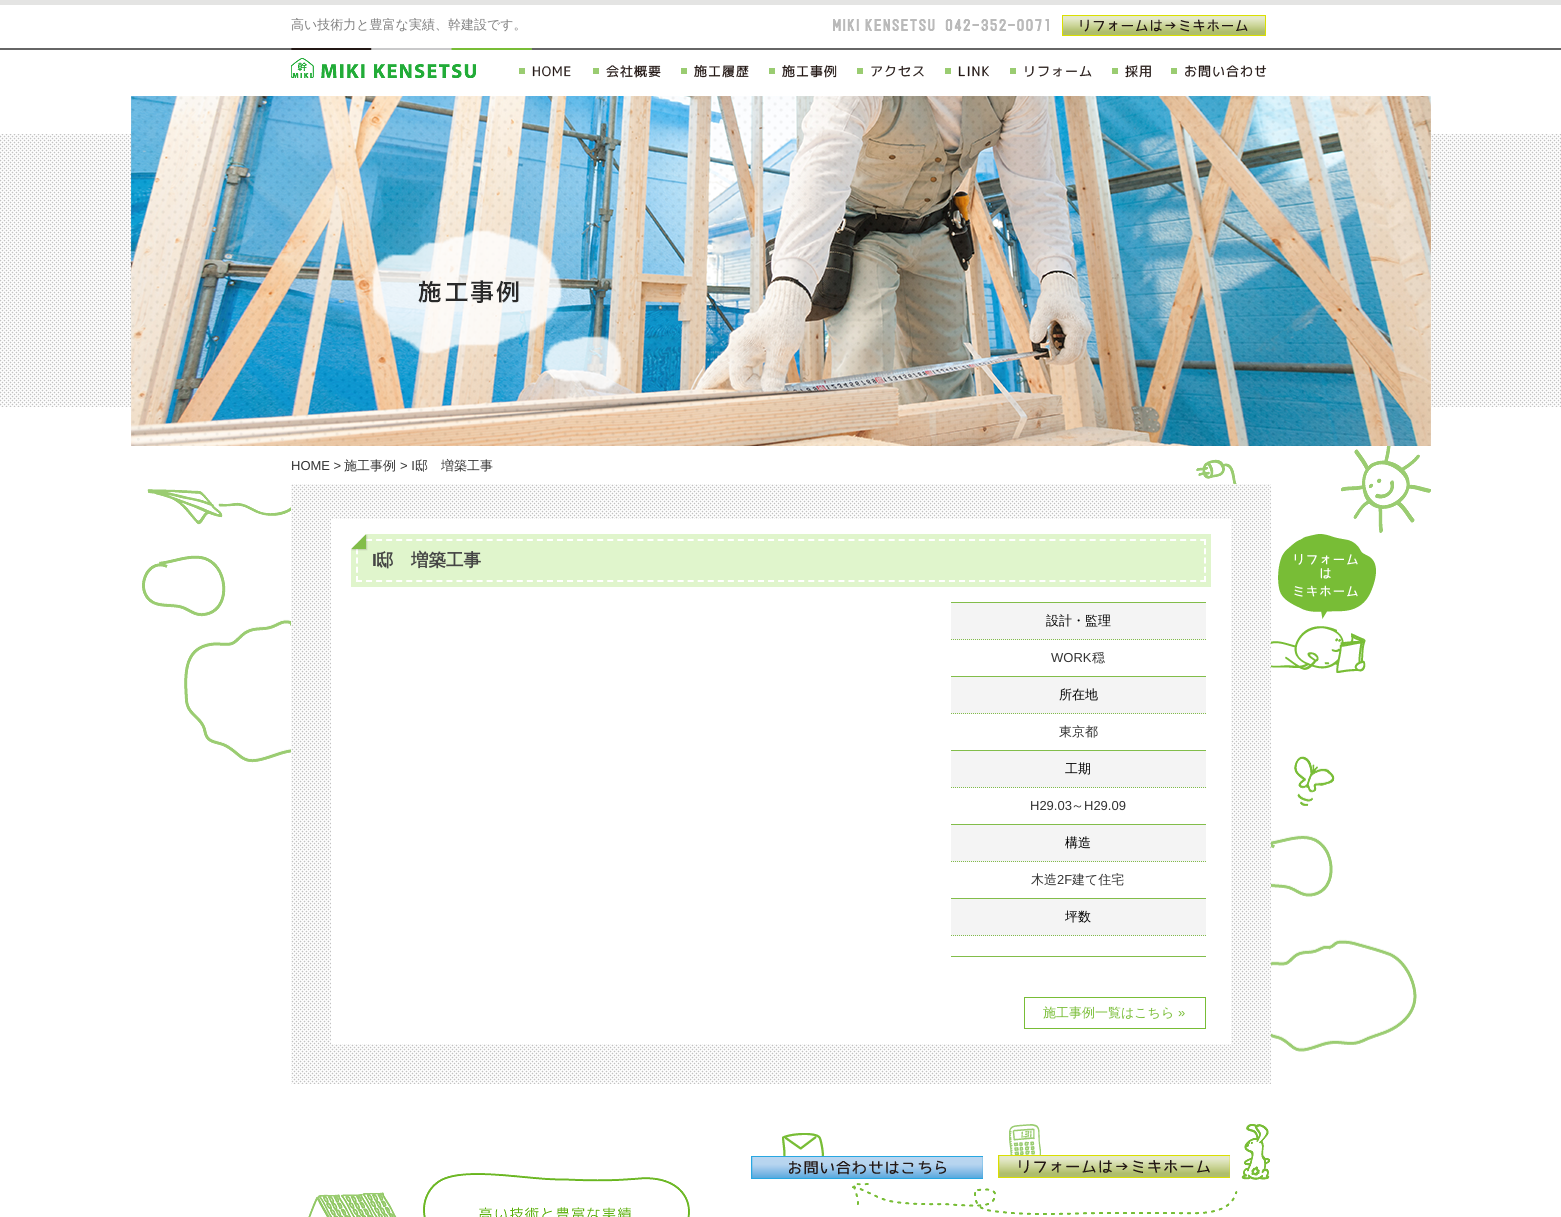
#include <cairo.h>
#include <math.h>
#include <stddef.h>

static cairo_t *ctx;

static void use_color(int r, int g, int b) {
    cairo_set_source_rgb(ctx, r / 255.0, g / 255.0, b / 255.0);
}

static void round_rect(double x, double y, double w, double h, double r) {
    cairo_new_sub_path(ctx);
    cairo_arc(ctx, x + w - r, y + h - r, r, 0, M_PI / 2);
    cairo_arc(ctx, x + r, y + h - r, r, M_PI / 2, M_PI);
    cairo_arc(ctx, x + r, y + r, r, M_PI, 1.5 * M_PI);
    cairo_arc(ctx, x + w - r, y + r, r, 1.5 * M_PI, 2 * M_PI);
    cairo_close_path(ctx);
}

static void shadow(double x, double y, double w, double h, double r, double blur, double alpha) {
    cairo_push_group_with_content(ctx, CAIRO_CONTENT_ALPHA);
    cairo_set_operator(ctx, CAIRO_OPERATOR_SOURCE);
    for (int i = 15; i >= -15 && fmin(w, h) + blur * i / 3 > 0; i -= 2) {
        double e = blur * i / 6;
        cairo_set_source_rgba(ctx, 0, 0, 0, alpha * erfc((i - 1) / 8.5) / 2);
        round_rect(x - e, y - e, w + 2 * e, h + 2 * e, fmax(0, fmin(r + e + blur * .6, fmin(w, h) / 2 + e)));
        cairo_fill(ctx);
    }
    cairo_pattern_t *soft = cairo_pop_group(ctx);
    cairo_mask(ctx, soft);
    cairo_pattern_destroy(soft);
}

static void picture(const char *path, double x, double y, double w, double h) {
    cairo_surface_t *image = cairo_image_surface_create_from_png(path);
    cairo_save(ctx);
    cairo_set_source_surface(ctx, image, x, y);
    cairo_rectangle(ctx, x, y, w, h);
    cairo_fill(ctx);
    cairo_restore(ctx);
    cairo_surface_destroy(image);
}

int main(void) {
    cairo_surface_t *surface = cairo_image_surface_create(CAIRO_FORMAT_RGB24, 1561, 1217);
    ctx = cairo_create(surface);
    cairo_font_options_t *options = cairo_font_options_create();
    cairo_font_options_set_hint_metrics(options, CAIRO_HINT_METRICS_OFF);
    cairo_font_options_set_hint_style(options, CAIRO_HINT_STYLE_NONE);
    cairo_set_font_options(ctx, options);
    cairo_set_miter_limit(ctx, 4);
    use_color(255, 255, 255);
    cairo_paint(ctx);
    use_color(228, 228, 227);
    cairo_rectangle(ctx, 0, 0, 1561, 5);
    cairo_fill(ctx);
    cairo_select_font_face(ctx, "WenQuanYi Zen Hei Medium", CAIRO_FONT_SLANT_NORMAL, CAIRO_FONT_WEIGHT_NORMAL);
    cairo_set_font_size(ctx, 13);
    use_color(127, 127, 127);
    cairo_move_to(ctx, 291, 29);
    cairo_show_text(ctx, "高い技術力と豊富な実績、幹建設です。");
    picture("img1.png", 833, 19, 216, 12);
    picture("img2.png", 1062, 15, 204, 21);
    use_color(102, 102, 102);
    cairo_rectangle(ctx, 0, 48, 1561, 2);
    cairo_fill(ctx);
    picture("img3.png", 291, 48, 241, 2);
    picture("img4.png", 291, 58, 185, 20);
    picture("img5.png", 519, 66, 52, 11);
    picture("img6.png", 593, 65, 68, 13);
    picture("img7.png", 681, 65, 68, 13);
    picture("img8.png", 769, 65, 68, 13);
    picture("img9.png", 857, 65, 67, 12);
    picture("img10.png", 945, 66, 44, 11);
    picture("img11.png", 1010, 66, 82, 11);
    picture("img12.png", 1112, 65, 39, 13);
    picture("img13.png", 1171, 65, 96, 13);
    picture("img14.png", 0, 134, 1561, 273);
    picture("img15.png", 131, 96, 1300, 350);
    picture("img16.png", 142, 446, 1289, 606);
    cairo_select_font_face(ctx, "Liberation Sans", CAIRO_FONT_SLANT_NORMAL, CAIRO_FONT_WEIGHT_NORMAL);
    use_color(51, 51, 51);
    cairo_move_to(ctx, 291, 470);
    cairo_show_text(ctx, "HOME >");
    cairo_select_font_face(ctx, "WenQuanYi Zen Hei Medium", CAIRO_FONT_SLANT_NORMAL, CAIRO_FONT_WEIGHT_NORMAL);
    cairo_move_to(ctx, 344, 470);
    cairo_show_text(ctx, "施工事例");
    cairo_select_font_face(ctx, "Liberation Sans", CAIRO_FONT_SLANT_NORMAL, CAIRO_FONT_WEIGHT_NORMAL);
    cairo_move_to(ctx, 400, 470);
    cairo_show_text(ctx, "> I");
    cairo_select_font_face(ctx, "WenQuanYi Zen Hei Medium", CAIRO_FONT_SLANT_NORMAL, CAIRO_FONT_WEIGHT_NORMAL);
    cairo_move_to(ctx, 415, 470);
    cairo_show_text(ctx, "邸　増築工事");
    picture("img17.png", 291, 484, 980, 600);
    use_color(255, 255, 255);
    cairo_rectangle(ctx, 331, 519, 900, 525);
    cairo_fill(ctx);
    cairo_rectangle(ctx, 353.5, 536.5, 855, 48);
    use_color(224, 245, 204);
    cairo_set_line_width(ctx, 5);
    cairo_stroke(ctx);
    cairo_rectangle(ctx, 356, 539, 850, 43);
    cairo_fill(ctx);
    cairo_new_path(ctx);
    cairo_move_to(ctx, 356, 540);
    cairo_line_to(ctx, 1206, 540);
    use_color(255, 255, 255);
    cairo_set_line_width(ctx, 2);
    cairo_set_dash(ctx, (double[]){6, 4.05}, 2, 0);
    cairo_stroke(ctx);
    cairo_new_path(ctx);
    cairo_move_to(ctx, 1205, 539);
    cairo_line_to(ctx, 1205, 582);
    cairo_set_dash(ctx, (double[]){6, 3.25}, 2, 0);
    cairo_stroke(ctx);
    cairo_new_path(ctx);
    cairo_move_to(ctx, 356, 581);
    cairo_line_to(ctx, 1206, 581);
    cairo_set_dash(ctx, (double[]){6, 4.05}, 2, 0);
    cairo_stroke(ctx);
    cairo_new_path(ctx);
    cairo_move_to(ctx, 357, 539);
    cairo_line_to(ctx, 357, 582);
    cairo_set_dash(ctx, (double[]){6, 3.25}, 2, 0);
    cairo_stroke(ctx);
    use_color(0, 0, 0);
    shadow(352, 535, 15, 15, 0, 0.5, 0.15);
    use_color(130, 189, 74);
    cairo_new_path(ctx);
    cairo_move_to(ctx, 366, 549);
    cairo_line_to(ctx, 351, 549);
    cairo_line_to(ctx, 366, 534);
    cairo_close_path(ctx);
    cairo_fill(ctx);
    use_color(255, 255, 255);
    cairo_new_path(ctx);
    cairo_move_to(ctx, 351, 549);
    cairo_line_to(ctx, 351, 534);
    cairo_line_to(ctx, 366, 534);
    cairo_close_path(ctx);
    cairo_fill(ctx);
    cairo_select_font_face(ctx, "Liberation Sans", CAIRO_FONT_SLANT_NORMAL, CAIRO_FONT_WEIGHT_BOLD);
    cairo_set_font_size(ctx, 17.5);
    use_color(69, 69, 69);
    cairo_move_to(ctx, 372, 566);
    cairo_show_text(ctx, "I");
    cairo_select_font_face(ctx, "WenQuanYi Zen Hei", CAIRO_FONT_SLANT_NORMAL, CAIRO_FONT_WEIGHT_BOLD);
    cairo_move_to(ctx, 376, 566);
    cairo_show_text(ctx, "邸　増築工事");
    use_color(130, 189, 74);
    cairo_rectangle(ctx, 951, 956, 255, 1);
    cairo_fill(ctx);
    use_color(244, 244, 244);
    cairo_rectangle(ctx, 951, 603, 255, 37);
    cairo_fill(ctx);
    use_color(130, 189, 74);
    cairo_rectangle(ctx, 951, 602, 255, 1);
    cairo_fill(ctx);
    cairo_new_path(ctx);
    cairo_move_to(ctx, 951, 639.5);
    cairo_line_to(ctx, 1206, 639.5);
    cairo_set_line_width(ctx, 1);
    cairo_set_dash(ctx, (double[]){1, 1}, 2, 0);
    cairo_stroke(ctx);
    cairo_select_font_face(ctx, "WenQuanYi Zen Hei Medium", CAIRO_FONT_SLANT_NORMAL, CAIRO_FONT_WEIGHT_NORMAL);
    cairo_set_font_size(ctx, 13);
    use_color(1, 1, 1);
    cairo_move_to(ctx, 1046, 625);
    cairo_show_text(ctx, "設計・監理");
    cairo_select_font_face(ctx, "Liberation Sans", CAIRO_FONT_SLANT_NORMAL, CAIRO_FONT_WEIGHT_NORMAL);
    use_color(51, 51, 51);
    cairo_move_to(ctx, 1051, 662);
    cairo_show_text(ctx, "WORK");
    cairo_select_font_face(ctx, "WenQuanYi Zen Hei Medium", CAIRO_FONT_SLANT_NORMAL, CAIRO_FONT_WEIGHT_NORMAL);
    cairo_move_to(ctx, 1092, 662);
    cairo_show_text(ctx, "穏");
    use_color(244, 244, 244);
    cairo_rectangle(ctx, 951, 677, 255, 37);
    cairo_fill(ctx);
    use_color(130, 189, 74);
    cairo_rectangle(ctx, 951, 676, 255, 1);
    cairo_fill(ctx);
    cairo_new_path(ctx);
    cairo_move_to(ctx, 951, 713.5);
    cairo_line_to(ctx, 1206, 713.5);
    cairo_stroke(ctx);
    use_color(1, 1, 1);
    cairo_move_to(ctx, 1059, 699);
    cairo_show_text(ctx, "所在地");
    use_color(51, 51, 51);
    cairo_move_to(ctx, 1059, 736);
    cairo_show_text(ctx, "東京都");
    use_color(244, 244, 244);
    cairo_rectangle(ctx, 951, 751, 255, 37);
    cairo_fill(ctx);
    use_color(130, 189, 74);
    cairo_rectangle(ctx, 951, 750, 255, 1);
    cairo_fill(ctx);
    cairo_new_path(ctx);
    cairo_move_to(ctx, 951, 787.5);
    cairo_line_to(ctx, 1206, 787.5);
    cairo_stroke(ctx);
    use_color(1, 1, 1);
    cairo_move_to(ctx, 1065, 773);
    cairo_show_text(ctx, "工期");
    cairo_select_font_face(ctx, "Liberation Sans", CAIRO_FONT_SLANT_NORMAL, CAIRO_FONT_WEIGHT_NORMAL);
    use_color(51, 51, 51);
    cairo_move_to(ctx, 1030, 810);
    cairo_show_text(ctx, "H29.03");
    cairo_select_font_face(ctx, "WenQuanYi Zen Hei Medium", CAIRO_FONT_SLANT_NORMAL, CAIRO_FONT_WEIGHT_NORMAL);
    cairo_move_to(ctx, 1071, 810);
    cairo_show_text(ctx, "～");
    cairo_select_font_face(ctx, "Liberation Sans", CAIRO_FONT_SLANT_NORMAL, CAIRO_FONT_WEIGHT_NORMAL);
    cairo_move_to(ctx, 1084, 810);
    cairo_show_text(ctx, "H29.09");
    use_color(244, 244, 244);
    cairo_rectangle(ctx, 951, 825, 255, 37);
    cairo_fill(ctx);
    use_color(130, 189, 74);
    cairo_rectangle(ctx, 951, 824, 255, 1);
    cairo_fill(ctx);
    cairo_new_path(ctx);
    cairo_move_to(ctx, 951, 861.5);
    cairo_line_to(ctx, 1206, 861.5);
    cairo_stroke(ctx);
    cairo_select_font_face(ctx, "WenQuanYi Zen Hei Medium", CAIRO_FONT_SLANT_NORMAL, CAIRO_FONT_WEIGHT_NORMAL);
    use_color(1, 1, 1);
    cairo_move_to(ctx, 1065, 847);
    cairo_show_text(ctx, "構造");
    use_color(51, 51, 51);
    cairo_move_to(ctx, 1031, 884);
    cairo_show_text(ctx, "木造");
    cairo_select_font_face(ctx, "Liberation Sans", CAIRO_FONT_SLANT_NORMAL, CAIRO_FONT_WEIGHT_NORMAL);
    cairo_move_to(ctx, 1057, 884);
    cairo_show_text(ctx, "2F");
    cairo_select_font_face(ctx, "WenQuanYi Zen Hei Medium", CAIRO_FONT_SLANT_NORMAL, CAIRO_FONT_WEIGHT_NORMAL);
    cairo_move_to(ctx, 1072, 884);
    cairo_show_text(ctx, "建て住宅");
    use_color(244, 244, 244);
    cairo_rectangle(ctx, 951, 899, 255, 37);
    cairo_fill(ctx);
    use_color(130, 189, 74);
    cairo_rectangle(ctx, 951, 898, 255, 1);
    cairo_fill(ctx);
    cairo_new_path(ctx);
    cairo_move_to(ctx, 951, 935.5);
    cairo_line_to(ctx, 1206, 935.5);
    cairo_stroke(ctx);
    use_color(1, 1, 1);
    cairo_move_to(ctx, 1065, 921);
    cairo_show_text(ctx, "坪数");
    cairo_rectangle(ctx, 1024.5, 997.5, 181, 31);
    use_color(120, 189, 54);
    cairo_set_dash(ctx, NULL, 0, 0);
    cairo_stroke(ctx);
    cairo_move_to(ctx, 1043, 1017);
    cairo_show_text(ctx, "施工事例一覧はこちら");
    cairo_select_font_face(ctx, "Liberation Sans", CAIRO_FONT_SLANT_NORMAL, CAIRO_FONT_WEIGHT_NORMAL);
    cairo_move_to(ctx, 1178, 1017);
    cairo_show_text(ctx, "»");
    picture("img18.png", 1271, 534, 105, 139);
    picture("img19.png", 308, 1173, 382, 44);
    picture("img20.png", 852, 1124, 418, 91);
    picture("img21.png", 751, 1133, 232, 46);
    picture("img22.png", 998, 1124, 232, 54);
    cairo_surface_write_to_png(surface, "result.png");
    cairo_font_options_destroy(options);
    cairo_destroy(ctx);
    cairo_surface_destroy(surface);
    return 0;
}
